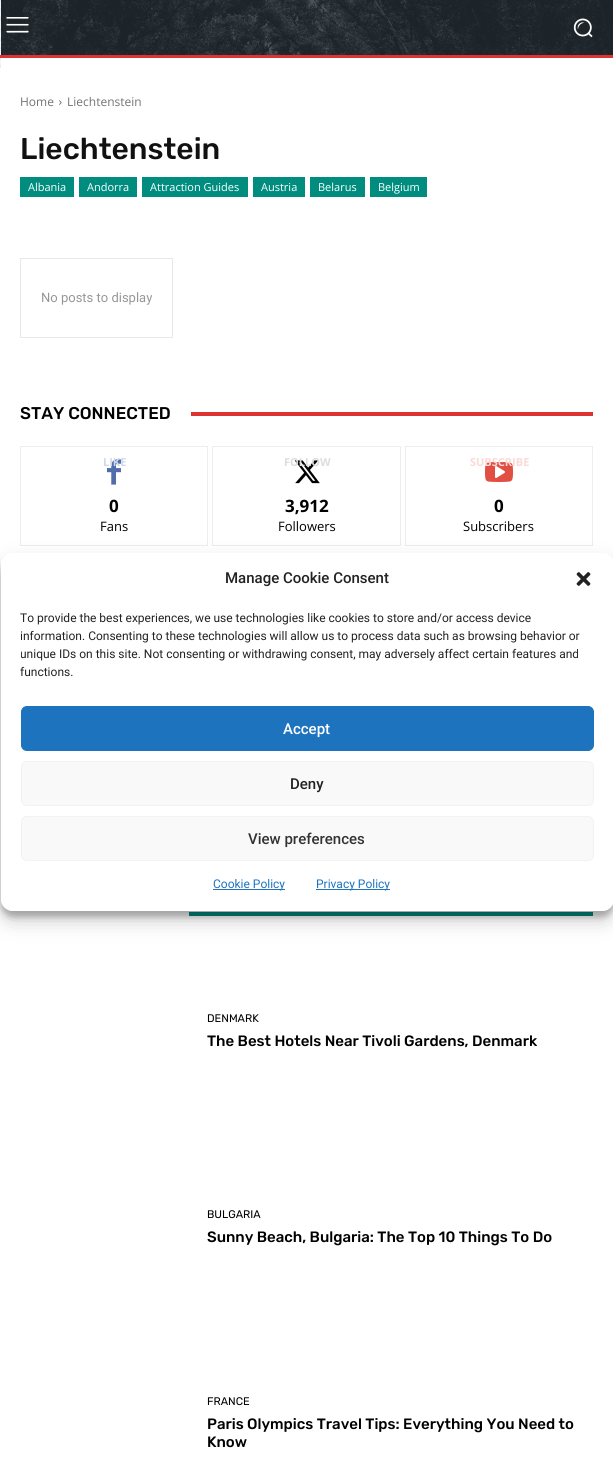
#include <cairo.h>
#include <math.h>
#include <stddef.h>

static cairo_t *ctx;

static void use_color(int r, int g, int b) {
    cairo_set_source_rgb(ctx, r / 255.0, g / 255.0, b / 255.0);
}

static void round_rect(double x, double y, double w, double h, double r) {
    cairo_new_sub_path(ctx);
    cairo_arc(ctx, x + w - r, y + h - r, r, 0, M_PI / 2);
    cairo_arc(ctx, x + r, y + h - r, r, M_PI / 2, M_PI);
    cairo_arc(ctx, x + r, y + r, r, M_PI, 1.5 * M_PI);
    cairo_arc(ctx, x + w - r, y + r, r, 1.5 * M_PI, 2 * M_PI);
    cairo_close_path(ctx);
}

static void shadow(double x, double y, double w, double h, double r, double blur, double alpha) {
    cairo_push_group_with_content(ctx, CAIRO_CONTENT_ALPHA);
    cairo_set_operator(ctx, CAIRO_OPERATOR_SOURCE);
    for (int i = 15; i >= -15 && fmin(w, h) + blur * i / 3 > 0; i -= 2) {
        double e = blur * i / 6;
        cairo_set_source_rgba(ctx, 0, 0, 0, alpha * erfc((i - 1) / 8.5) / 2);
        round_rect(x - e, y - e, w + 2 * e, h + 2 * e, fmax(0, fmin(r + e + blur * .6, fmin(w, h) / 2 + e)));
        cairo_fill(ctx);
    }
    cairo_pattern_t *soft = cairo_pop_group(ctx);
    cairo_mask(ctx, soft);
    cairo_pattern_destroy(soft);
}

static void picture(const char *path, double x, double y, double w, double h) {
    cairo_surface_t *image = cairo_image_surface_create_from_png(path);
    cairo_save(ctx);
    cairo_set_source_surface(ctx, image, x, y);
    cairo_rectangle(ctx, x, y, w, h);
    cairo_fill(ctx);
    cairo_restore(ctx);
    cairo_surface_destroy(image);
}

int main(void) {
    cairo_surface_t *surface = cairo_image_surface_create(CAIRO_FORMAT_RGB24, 613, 1464);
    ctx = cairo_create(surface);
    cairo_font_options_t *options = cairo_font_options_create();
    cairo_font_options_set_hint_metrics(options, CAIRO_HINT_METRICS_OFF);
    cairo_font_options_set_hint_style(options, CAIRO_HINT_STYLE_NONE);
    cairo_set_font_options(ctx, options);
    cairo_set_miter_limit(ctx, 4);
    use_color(255, 255, 255);
    cairo_paint(ctx);
    picture("img1.png", 0, 0, 1, 68);
    use_color(0, 0, 0);
    shadow(-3, 65, 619, 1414, 0, 5, 0.12);
    use_color(35, 45, 53);
    cairo_rectangle(ctx, 1, 0, 612, 55);
    cairo_fill(ctx);
    picture("img2.png", 0, 0, 613, 55);
    picture("img3.png", 6, 17, 23, 16);
    picture("img4.png", 573, 18, 20, 20);
    use_color(221, 51, 51);
    cairo_rectangle(ctx, 0, 55, 613, 3);
    cairo_fill(ctx);
    use_color(255, 255, 255);
    cairo_rectangle(ctx, 1, 58, 612, 10);
    cairo_fill(ctx);
    cairo_rectangle(ctx, 0, 68, 613, 1396);
    cairo_fill(ctx);
    cairo_select_font_face(ctx, "Open Sans", CAIRO_FONT_SLANT_NORMAL, CAIRO_FONT_WEIGHT_NORMAL);
    cairo_set_font_size(ctx, 12);
    use_color(116, 116, 116);
    cairo_move_to(ctx, 20, 106);
    cairo_show_text(ctx, "Home");
    picture("img5.png", 59, 100, 3, 5);
    cairo_move_to(ctx, 67, 106);
    cairo_show_text(ctx, "Liechtenstein");
    cairo_select_font_face(ctx, "Rubik Medium", CAIRO_FONT_SLANT_NORMAL, CAIRO_FONT_WEIGHT_NORMAL);
    cairo_set_font_size(ctx, 30);
    use_color(17, 17, 17);
    cairo_move_to(ctx, 20, 159);
    cairo_show_text(ctx, "Liechtenstein");
    use_color(0, 141, 127);
    cairo_rectangle(ctx, 20, 177, 54, 20);
    cairo_fill(ctx);
    cairo_select_font_face(ctx, "Open Sans", CAIRO_FONT_SLANT_NORMAL, CAIRO_FONT_WEIGHT_NORMAL);
    cairo_set_font_size(ctx, 11);
    use_color(255, 255, 255);
    cairo_move_to(ctx, 28, 191);
    cairo_show_text(ctx, "Albania");
    use_color(0, 141, 127);
    cairo_rectangle(ctx, 79, 177, 58, 20);
    cairo_fill(ctx);
    use_color(255, 255, 255);
    cairo_move_to(ctx, 87, 191);
    cairo_show_text(ctx, "Andorra");
    use_color(0, 141, 127);
    cairo_rectangle(ctx, 142, 177, 106, 20);
    cairo_fill(ctx);
    use_color(255, 255, 255);
    cairo_move_to(ctx, 150, 191);
    cairo_show_text(ctx, "Attraction Guides");
    use_color(0, 141, 127);
    cairo_rectangle(ctx, 253, 177, 52, 20);
    cairo_fill(ctx);
    use_color(255, 255, 255);
    cairo_move_to(ctx, 261, 191);
    cairo_show_text(ctx, "Austria");
    use_color(0, 141, 127);
    cairo_rectangle(ctx, 310, 177, 55, 20);
    cairo_fill(ctx);
    use_color(255, 255, 255);
    cairo_move_to(ctx, 318, 191);
    cairo_show_text(ctx, "Belarus");
    use_color(0, 141, 127);
    cairo_rectangle(ctx, 370, 177, 57, 20);
    cairo_fill(ctx);
    use_color(255, 255, 255);
    cairo_move_to(ctx, 378, 191);
    cairo_show_text(ctx, "Belgium");
    cairo_rectangle(ctx, 20.5, 258.5, 152, 79);
    use_color(232, 232, 232);
    cairo_set_line_width(ctx, 1);
    cairo_stroke(ctx);
    cairo_select_font_face(ctx, "Roboto", CAIRO_FONT_SLANT_NORMAL, CAIRO_FONT_WEIGHT_NORMAL);
    cairo_set_font_size(ctx, 13);
    use_color(151, 151, 151);
    cairo_move_to(ctx, 41, 302);
    cairo_show_text(ctx, "No posts to display");
    cairo_select_font_face(ctx, "Rubik Medium", CAIRO_FONT_SLANT_NORMAL, CAIRO_FONT_WEIGHT_NORMAL);
    cairo_set_font_size(ctx, 17);
    use_color(0, 0, 0);
    cairo_move_to(ctx, 20, 419);
    cairo_show_text(ctx, "STAY CONNECTED");
    use_color(221, 51, 51);
    cairo_rectangle(ctx, 191, 412, 402, 4);
    cairo_fill(ctx);
    cairo_rectangle(ctx, 20.5, 446.5, 187, 99);
    use_color(237, 237, 237);
    cairo_stroke(ctx);
    picture("img6.png", 107, 459, 14, 26);
    cairo_select_font_face(ctx, "Open Sans", CAIRO_FONT_SLANT_NORMAL, CAIRO_FONT_WEIGHT_BOLD);
    cairo_set_font_size(ctx, 11);
    use_color(209, 216, 233);
    cairo_move_to(ctx, 103, 466);
    cairo_show_text(ctx, "LIKE");
    cairo_set_font_size(ctx, 17);
    use_color(0, 0, 0);
    cairo_move_to(ctx, 109, 512);
    cairo_show_text(ctx, "0");
    cairo_select_font_face(ctx, "Open Sans", CAIRO_FONT_SLANT_NORMAL, CAIRO_FONT_WEIGHT_NORMAL);
    cairo_set_font_size(ctx, 13);
    cairo_move_to(ctx, 100, 531);
    cairo_show_text(ctx, "Fans");
    cairo_rectangle(ctx, 212.5, 446.5, 188, 99);
    use_color(237, 237, 237);
    cairo_stroke(ctx);
    picture("img7.png", 294, 460, 26, 24);
    cairo_select_font_face(ctx, "Open Sans", CAIRO_FONT_SLANT_NORMAL, CAIRO_FONT_WEIGHT_BOLD);
    cairo_set_font_size(ctx, 11);
    use_color(221, 221, 221);
    cairo_move_to(ctx, 284, 466);
    cairo_show_text(ctx, "FOLLOW");
    cairo_set_font_size(ctx, 17);
    use_color(0, 0, 0);
    cairo_move_to(ctx, 285, 512);
    cairo_show_text(ctx, "3,912");
    cairo_select_font_face(ctx, "Open Sans", CAIRO_FONT_SLANT_NORMAL, CAIRO_FONT_WEIGHT_NORMAL);
    cairo_set_font_size(ctx, 13);
    cairo_move_to(ctx, 278, 531);
    cairo_show_text(ctx, "Followers");
    cairo_rectangle(ctx, 405.5, 446.5, 187, 99);
    use_color(237, 237, 237);
    cairo_stroke(ctx);
    picture("img8.png", 485, 462, 28, 20);
    cairo_select_font_face(ctx, "Open Sans", CAIRO_FONT_SLANT_NORMAL, CAIRO_FONT_WEIGHT_BOLD);
    cairo_set_font_size(ctx, 11);
    use_color(249, 218, 215);
    cairo_move_to(ctx, 470, 466);
    cairo_show_text(ctx, "SUBSCRIBE");
    cairo_set_font_size(ctx, 17);
    use_color(0, 0, 0);
    cairo_move_to(ctx, 494, 512);
    cairo_show_text(ctx, "0");
    cairo_select_font_face(ctx, "Open Sans", CAIRO_FONT_SLANT_NORMAL, CAIRO_FONT_WEIGHT_NORMAL);
    cairo_set_font_size(ctx, 13);
    cairo_move_to(ctx, 463, 531);
    cairo_show_text(ctx, "Subscribers");
    use_color(0, 141, 127);
    cairo_rectangle(ctx, 189, 912, 404, 4);
    cairo_fill(ctx);
    cairo_select_font_face(ctx, "Rubik", CAIRO_FONT_SLANT_NORMAL, CAIRO_FONT_WEIGHT_NORMAL);
    cairo_set_font_size(ctx, 11);
    use_color(0, 0, 0);
    cairo_move_to(ctx, 207, 1022);
    cairo_show_text(ctx, "DENMARK");
    cairo_select_font_face(ctx, "Rubik Medium", CAIRO_FONT_SLANT_NORMAL, CAIRO_FONT_WEIGHT_NORMAL);
    cairo_set_font_size(ctx, 15);
    cairo_move_to(ctx, 207, 1046);
    cairo_show_text(ctx, "The Best Hotels Near Tivoli Gardens, Denmark");
    cairo_select_font_face(ctx, "Rubik", CAIRO_FONT_SLANT_NORMAL, CAIRO_FONT_WEIGHT_NORMAL);
    cairo_set_font_size(ctx, 11);
    cairo_move_to(ctx, 207, 1218);
    cairo_show_text(ctx, "BULGARIA");
    cairo_select_font_face(ctx, "Rubik Medium", CAIRO_FONT_SLANT_NORMAL, CAIRO_FONT_WEIGHT_NORMAL);
    cairo_set_font_size(ctx, 15);
    cairo_move_to(ctx, 207, 1242);
    cairo_show_text(ctx, "Sunny Beach, Bulgaria: The Top 10 Things To Do");
    cairo_select_font_face(ctx, "Rubik", CAIRO_FONT_SLANT_NORMAL, CAIRO_FONT_WEIGHT_NORMAL);
    cairo_set_font_size(ctx, 11);
    cairo_move_to(ctx, 207, 1405);
    cairo_show_text(ctx, "FRANCE");
    cairo_select_font_face(ctx, "Rubik Medium", CAIRO_FONT_SLANT_NORMAL, CAIRO_FONT_WEIGHT_NORMAL);
    cairo_set_font_size(ctx, 15);
    cairo_move_to(ctx, 207, 1429);
    cairo_show_text(ctx, "Paris Olympics Travel Tips: Everything You Need to");
    cairo_move_to(ctx, 207, 1447);
    cairo_show_text(ctx, "Know");
    cairo_save(ctx);
    cairo_set_fill_rule(ctx, CAIRO_FILL_RULE_EVEN_ODD);
    cairo_new_path(ctx);
    cairo_move_to(ctx, 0, 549);
    cairo_line_to(ctx, 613, 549);
    cairo_line_to(ctx, 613, 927);
    cairo_line_to(ctx, 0, 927);
    cairo_close_path(ctx);
    cairo_move_to(ctx, 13, 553);
    cairo_line_to(ctx, 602, 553);
    cairo_curve_to(ctx, 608.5, 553, 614, 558.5, 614, 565);
    cairo_line_to(ctx, 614, 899);
    cairo_curve_to(ctx, 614, 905.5, 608.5, 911, 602, 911);
    cairo_line_to(ctx, 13, 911);
    cairo_curve_to(ctx, 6.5, 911, 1, 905.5, 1, 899);
    cairo_line_to(ctx, 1, 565);
    cairo_curve_to(ctx, 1, 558.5, 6.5, 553, 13, 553);
    cairo_close_path(ctx);
    cairo_clip(ctx);
    use_color(0, 0, 0);
    shadow(1, 559, 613, 358, 12, 3, 0.23);
    cairo_restore(ctx);
    cairo_save(ctx);
    cairo_set_fill_rule(ctx, CAIRO_FILL_RULE_EVEN_ODD);
    cairo_new_path(ctx);
    cairo_move_to(ctx, 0, 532);
    cairo_line_to(ctx, 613, 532);
    cairo_line_to(ctx, 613, 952);
    cairo_line_to(ctx, 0, 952);
    cairo_close_path(ctx);
    cairo_move_to(ctx, 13, 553);
    cairo_line_to(ctx, 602, 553);
    cairo_curve_to(ctx, 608.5, 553, 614, 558.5, 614, 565);
    cairo_line_to(ctx, 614, 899);
    cairo_curve_to(ctx, 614, 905.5, 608.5, 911, 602, 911);
    cairo_line_to(ctx, 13, 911);
    cairo_curve_to(ctx, 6.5, 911, 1, 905.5, 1, 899);
    cairo_line_to(ctx, 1, 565);
    cairo_curve_to(ctx, 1, 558.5, 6.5, 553, 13, 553);
    cairo_close_path(ctx);
    cairo_clip(ctx);
    use_color(0, 0, 0);
    shadow(1, 563, 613, 358, 12, 10, 0.19);
    cairo_restore(ctx);
    use_color(255, 255, 255);
    round_rect(1, 553, 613, 358, 12);
    cairo_fill(ctx);
    cairo_select_font_face(ctx, "Roboto Medium", CAIRO_FONT_SLANT_NORMAL, CAIRO_FONT_WEIGHT_NORMAL);
    use_color(34, 34, 34);
    cairo_move_to(ctx, 225, 583);
    cairo_show_text(ctx, "Manage Cookie Consent");
    picture("img9.png", 576, 572, 15, 14);
    cairo_select_font_face(ctx, "Roboto", CAIRO_FONT_SLANT_NORMAL, CAIRO_FONT_WEIGHT_NORMAL);
    cairo_set_font_size(ctx, 12);
    cairo_move_to(ctx, 20, 622);
    cairo_show_text(ctx, "To provide the best experiences, we use technologies like cookies to store and/or access device");
    cairo_save(ctx);
    cairo_rectangle(ctx, 21, 609, 573, 77);
    cairo_clip(ctx);
    cairo_move_to(ctx, 20, 640);
    cairo_show_text(ctx, "information. Consenting to these technologies will allow us to process data such as browsing behavior or");
    cairo_move_to(ctx, 20, 658);
    cairo_show_text(ctx, "unique IDs on this site. Not consenting or withdrawing consent, may adversely affect certain features and");
    cairo_restore(ctx);
    cairo_move_to(ctx, 20, 676);
    cairo_show_text(ctx, "functions.");
    use_color(30, 115, 190);
    round_rect(21.5, 706.5, 572, 44, 5.5);
    cairo_fill_preserve(ctx);
    cairo_stroke(ctx);
    cairo_select_font_face(ctx, "Roboto Medium", CAIRO_FONT_SLANT_NORMAL, CAIRO_FONT_WEIGHT_NORMAL);
    cairo_set_font_size(ctx, 15);
    use_color(255, 255, 255);
    cairo_move_to(ctx, 283, 734);
    cairo_show_text(ctx, "Accept");
    use_color(249, 249, 249);
    round_rect(21.5, 761.5, 572, 44, 5.5);
    cairo_fill_preserve(ctx);
    use_color(242, 242, 242);
    cairo_stroke(ctx);
    use_color(34, 34, 34);
    cairo_move_to(ctx, 290, 789);
    cairo_show_text(ctx, "Deny");
    use_color(249, 249, 249);
    round_rect(21.5, 816.5, 572, 44, 5.5);
    cairo_fill_preserve(ctx);
    use_color(242, 242, 242);
    cairo_stroke(ctx);
    use_color(51, 51, 51);
    cairo_move_to(ctx, 248, 844);
    cairo_show_text(ctx, "View preferences");
    use_color(30, 115, 190);
    cairo_rectangle(ctx, 213, 889, 72, 1);
    cairo_fill(ctx);
    cairo_select_font_face(ctx, "Roboto", CAIRO_FONT_SLANT_NORMAL, CAIRO_FONT_WEIGHT_NORMAL);
    cairo_set_font_size(ctx, 12);
    cairo_move_to(ctx, 213, 888);
    cairo_show_text(ctx, "Cookie Policy");
    cairo_rectangle(ctx, 316, 889, 74, 1);
    cairo_fill(ctx);
    cairo_move_to(ctx, 316, 888);
    cairo_show_text(ctx, "Privacy Policy");
    cairo_surface_write_to_png(surface, "result.png");
    cairo_font_options_destroy(options);
    cairo_destroy(ctx);
    cairo_surface_destroy(surface);
    return 0;
}
